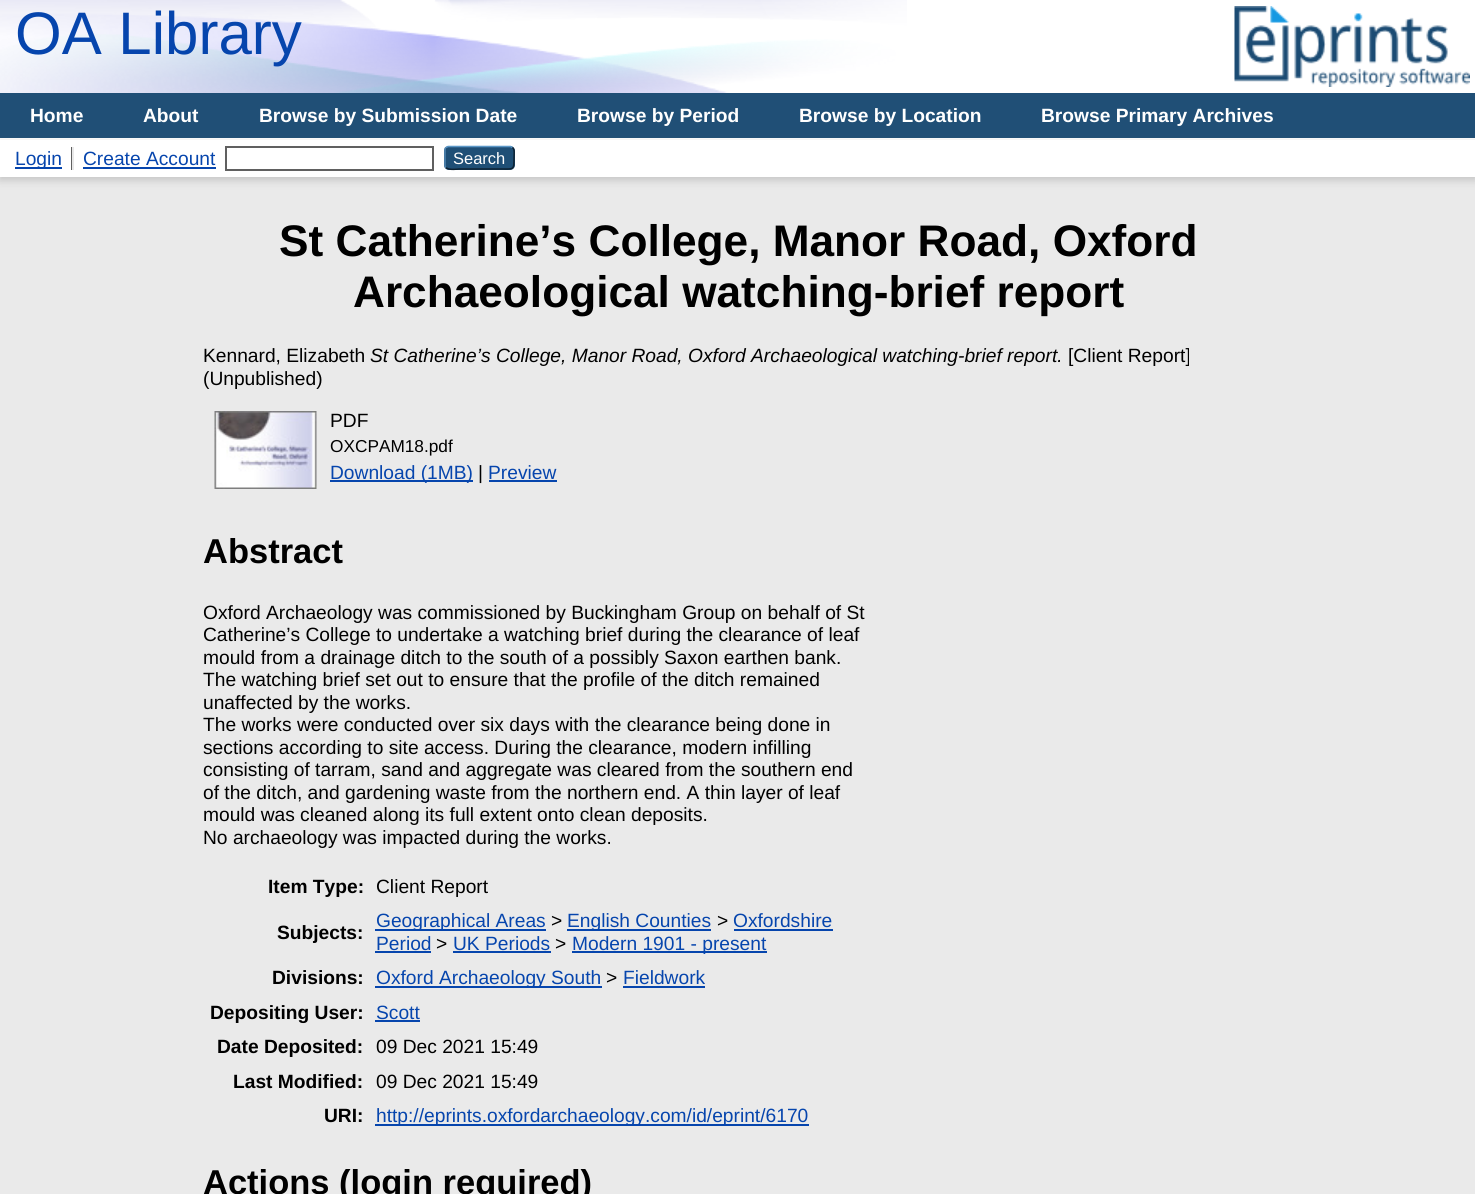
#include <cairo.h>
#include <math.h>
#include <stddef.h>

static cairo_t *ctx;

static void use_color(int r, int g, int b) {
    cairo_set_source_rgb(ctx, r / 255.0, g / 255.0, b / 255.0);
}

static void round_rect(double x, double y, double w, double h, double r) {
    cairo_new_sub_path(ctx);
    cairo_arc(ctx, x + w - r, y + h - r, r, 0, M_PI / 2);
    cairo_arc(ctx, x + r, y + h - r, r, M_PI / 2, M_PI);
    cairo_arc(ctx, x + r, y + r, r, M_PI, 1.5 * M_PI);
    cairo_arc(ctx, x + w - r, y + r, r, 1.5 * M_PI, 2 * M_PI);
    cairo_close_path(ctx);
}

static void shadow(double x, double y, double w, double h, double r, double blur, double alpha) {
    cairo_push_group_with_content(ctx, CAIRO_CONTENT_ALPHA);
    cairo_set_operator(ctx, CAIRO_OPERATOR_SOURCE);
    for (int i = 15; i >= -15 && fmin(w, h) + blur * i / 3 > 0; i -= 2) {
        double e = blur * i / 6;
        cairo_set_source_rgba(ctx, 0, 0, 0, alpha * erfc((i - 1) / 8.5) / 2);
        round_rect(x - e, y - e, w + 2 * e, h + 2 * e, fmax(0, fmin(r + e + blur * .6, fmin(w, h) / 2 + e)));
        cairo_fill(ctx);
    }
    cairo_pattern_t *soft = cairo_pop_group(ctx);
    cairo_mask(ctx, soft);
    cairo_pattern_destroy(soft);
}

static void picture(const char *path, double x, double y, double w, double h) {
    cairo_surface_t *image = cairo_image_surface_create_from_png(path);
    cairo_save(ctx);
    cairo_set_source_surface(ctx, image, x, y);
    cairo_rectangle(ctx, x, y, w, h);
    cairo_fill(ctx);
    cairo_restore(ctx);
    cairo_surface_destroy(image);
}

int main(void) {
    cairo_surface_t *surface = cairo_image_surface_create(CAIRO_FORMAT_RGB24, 1475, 1194);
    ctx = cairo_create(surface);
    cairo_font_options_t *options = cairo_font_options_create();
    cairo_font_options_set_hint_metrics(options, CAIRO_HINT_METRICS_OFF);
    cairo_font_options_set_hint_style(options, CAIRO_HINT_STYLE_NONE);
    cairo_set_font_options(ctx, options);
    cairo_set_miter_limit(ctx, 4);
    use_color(234, 234, 234);
    cairo_paint(ctx);
    use_color(255, 255, 255);
    cairo_rectangle(ctx, 0, 0, 1475, 93);
    cairo_fill(ctx);
    picture("img1.png", 0, 0, 907, 93);
    cairo_select_font_face(ctx, "Liberation Sans", CAIRO_FONT_SLANT_NORMAL, CAIRO_FONT_WEIGHT_NORMAL);
    cairo_set_font_size(ctx, 60);
    use_color(6, 69, 173);
    cairo_move_to(ctx, 15, 54);
    cairo_show_text(ctx, "OA Library");
    picture("img2.png", 1234, 6, 236, 81);
    use_color(32, 79, 118);
    cairo_rectangle(ctx, 0, 93, 1475, 45);
    cairo_fill(ctx);
    use_color(255, 255, 255);
    cairo_rectangle(ctx, 0, 138, 1475, 2);
    cairo_fill(ctx);
    cairo_select_font_face(ctx, "Liberation Sans", CAIRO_FONT_SLANT_NORMAL, CAIRO_FONT_WEIGHT_BOLD);
    cairo_set_font_size(ctx, 19.2);
    cairo_move_to(ctx, 30, 122);
    cairo_show_text(ctx, "Home");
    cairo_move_to(ctx, 143, 122);
    cairo_show_text(ctx, "About");
    cairo_move_to(ctx, 259, 122);
    cairo_show_text(ctx, "Browse by Submission Date");
    cairo_move_to(ctx, 577, 122);
    cairo_show_text(ctx, "Browse by Period");
    cairo_move_to(ctx, 799, 122);
    cairo_show_text(ctx, "Browse by Location");
    cairo_move_to(ctx, 1041, 122);
    cairo_show_text(ctx, "Browse Primary Archives");
    use_color(100, 100, 100);
    shadow(0, 143, 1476, 37, 0, 4.5, 0.3);
    use_color(255, 255, 255);
    cairo_rectangle(ctx, 0, 140, 1475, 37);
    cairo_fill(ctx);
    use_color(6, 69, 173);
    cairo_rectangle(ctx, 15, 167, 47, 2);
    cairo_fill(ctx);
    cairo_select_font_face(ctx, "Liberation Sans", CAIRO_FONT_SLANT_NORMAL, CAIRO_FONT_WEIGHT_NORMAL);
    cairo_move_to(ctx, 15, 165);
    cairo_show_text(ctx, "Login");
    use_color(96, 96, 96);
    cairo_rectangle(ctx, 71, 147, 1, 23);
    cairo_fill(ctx);
    use_color(6, 69, 173);
    cairo_move_to(ctx, 83, 165);
    cairo_show_text(ctx, "Create Account");
    use_color(232, 232, 232);
    cairo_rectangle(ctx, 72, 147, 2, 23);
    cairo_fill(ctx);
    use_color(6, 69, 173);
    cairo_rectangle(ctx, 83, 167, 133, 2);
    cairo_fill(ctx);
    cairo_rectangle(ctx, 226, 147, 207, 23);
    use_color(96, 96, 96);
    cairo_stroke(ctx);
    use_color(31, 79, 118);
    round_rect(444, 146, 71, 24, 5);
    cairo_fill(ctx);
    cairo_new_path(ctx);
    cairo_move_to(ctx, 446, 147.5);
    cairo_line_to(ctx, 448, 146.5);
    cairo_line_to(ctx, 510.5, 146.5);
    cairo_line_to(ctx, 512.5, 147.5);
    use_color(91, 151, 199);
    cairo_set_line_width(ctx, 1.5);
    cairo_stroke(ctx);
    cairo_new_path(ctx);
    cairo_move_to(ctx, 512.5, 147.5);
    cairo_curve_to(ctx, 515, 149.5, 514, 154.5, 514, 157.5);
    cairo_curve_to(ctx, 514, 170.5, 514, 169, 500, 169);
    cairo_line_to(ctx, 459, 169);
    cairo_curve_to(ctx, 458.5, 169, 448.5, 170.5, 446, 167.5);
    use_color(13, 33, 49);
    cairo_stroke(ctx);
    cairo_new_path(ctx);
    cairo_move_to(ctx, 446, 167.5);
    cairo_curve_to(ctx, 445, 167, 445, 166, 445, 165);
    cairo_line_to(ctx, 445, 150);
    cairo_curve_to(ctx, 445, 149, 445, 148, 446, 147.5);
    use_color(82, 135, 179);
    cairo_stroke(ctx);
    cairo_set_font_size(ctx, 16.5);
    use_color(255, 255, 255);
    cairo_move_to(ctx, 453, 164);
    cairo_show_text(ctx, "Search");
    cairo_select_font_face(ctx, "Liberation Sans", CAIRO_FONT_SLANT_NORMAL, CAIRO_FONT_WEIGHT_BOLD);
    cairo_set_font_size(ctx, 44.2);
    use_color(0, 0, 0);
    cairo_move_to(ctx, 279, 256);
    cairo_show_text(ctx, "St Catherine’s College, Manor Road, Oxford");
    cairo_move_to(ctx, 353, 307);
    cairo_show_text(ctx, "Archaeological watching‐brief report");
    cairo_select_font_face(ctx, "Liberation Sans", CAIRO_FONT_SLANT_NORMAL, CAIRO_FONT_WEIGHT_NORMAL);
    cairo_set_font_size(ctx, 19.2);
    cairo_move_to(ctx, 203, 362);
    cairo_show_text(ctx, "Kennard, Elizabeth");
    cairo_select_font_face(ctx, "Liberation Sans", CAIRO_FONT_SLANT_ITALIC, CAIRO_FONT_WEIGHT_NORMAL);
    cairo_move_to(ctx, 370, 362);
    cairo_show_text(ctx, "St Catherine’s College, Manor Road, Oxford Archaeological watching‐brief report.");
    cairo_select_font_face(ctx, "Liberation Sans", CAIRO_FONT_SLANT_NORMAL, CAIRO_FONT_WEIGHT_NORMAL);
    cairo_move_to(ctx, 1068, 362);
    cairo_show_text(ctx, "[Client Report]");
    cairo_move_to(ctx, 203, 385);
    cairo_show_text(ctx, "(Unpublished)");
    picture("img3.png", 214, 411, 103, 78);
    cairo_move_to(ctx, 330, 427);
    cairo_show_text(ctx, "PDF");
    cairo_set_font_size(ctx, 17.25);
    cairo_move_to(ctx, 330, 452);
    cairo_show_text(ctx, "OXCPAM18.pdf");
    use_color(6, 69, 173);
    cairo_rectangle(ctx, 330, 480, 143, 2);
    cairo_fill(ctx);
    cairo_set_font_size(ctx, 19.2);
    cairo_move_to(ctx, 330, 479);
    cairo_show_text(ctx, "Download (1MB)");
    use_color(0, 0, 0);
    cairo_move_to(ctx, 478, 479);
    cairo_show_text(ctx, "|");
    use_color(6, 69, 173);
    cairo_move_to(ctx, 488, 479);
    cairo_show_text(ctx, "Preview");
    cairo_rectangle(ctx, 489, 480, 68, 2);
    cairo_fill(ctx);
    cairo_select_font_face(ctx, "Liberation Sans", CAIRO_FONT_SLANT_NORMAL, CAIRO_FONT_WEIGHT_BOLD);
    cairo_set_font_size(ctx, 34.5);
    use_color(0, 0, 0);
    cairo_move_to(ctx, 203, 563);
    cairo_show_text(ctx, "Abstract");
    cairo_select_font_face(ctx, "Liberation Sans", CAIRO_FONT_SLANT_NORMAL, CAIRO_FONT_WEIGHT_NORMAL);
    cairo_set_font_size(ctx, 19.2);
    cairo_move_to(ctx, 203, 619);
    cairo_show_text(ctx, "Oxford Archaeology was commissioned by Buckingham Group on behalf of St");
    cairo_move_to(ctx, 203, 641);
    cairo_show_text(ctx, "Catherine’s College to undertake a watching brief during the clearance of leaf");
    cairo_move_to(ctx, 203, 664);
    cairo_show_text(ctx, "mould from a drainage ditch to the south of a possibly Saxon earthen bank.");
    cairo_move_to(ctx, 203, 686);
    cairo_show_text(ctx, "The watching brief set out to ensure that the profile of the ditch remained");
    cairo_move_to(ctx, 203, 709);
    cairo_show_text(ctx, "unaffected by the works.");
    cairo_move_to(ctx, 203, 731);
    cairo_show_text(ctx, "The works were conducted over six days with the clearance being done in");
    cairo_move_to(ctx, 203, 754);
    cairo_show_text(ctx, "sections according to site access. During the clearance, modern infilling");
    cairo_move_to(ctx, 203, 776);
    cairo_show_text(ctx, "consisting of tarram, sand and aggregate was cleared from the southern end");
    cairo_move_to(ctx, 203, 799);
    cairo_show_text(ctx, "of the ditch, and gardening waste from the northern end. A thin layer of leaf");
    cairo_move_to(ctx, 203, 821);
    cairo_show_text(ctx, "mould was cleaned along its full extent onto clean deposits.");
    cairo_move_to(ctx, 203, 844);
    cairo_show_text(ctx, "No archaeology was impacted during the works.");
    cairo_select_font_face(ctx, "Liberation Sans", CAIRO_FONT_SLANT_NORMAL, CAIRO_FONT_WEIGHT_BOLD);
    cairo_move_to(ctx, 268, 893);
    cairo_show_text(ctx, "Item Type:");
    cairo_select_font_face(ctx, "Liberation Sans", CAIRO_FONT_SLANT_NORMAL, CAIRO_FONT_WEIGHT_NORMAL);
    cairo_move_to(ctx, 376, 893);
    cairo_show_text(ctx, "Client Report");
    cairo_select_font_face(ctx, "Liberation Sans", CAIRO_FONT_SLANT_NORMAL, CAIRO_FONT_WEIGHT_BOLD);
    cairo_move_to(ctx, 277, 939);
    cairo_show_text(ctx, "Subjects:");
    use_color(6, 69, 173);
    cairo_rectangle(ctx, 375, 929, 171, 2);
    cairo_fill(ctx);
    cairo_select_font_face(ctx, "Liberation Sans", CAIRO_FONT_SLANT_NORMAL, CAIRO_FONT_WEIGHT_NORMAL);
    cairo_move_to(ctx, 376, 927);
    cairo_show_text(ctx, "Geographical Areas");
    use_color(0, 0, 0);
    cairo_move_to(ctx, 551, 927);
    cairo_show_text(ctx, ">");
    use_color(6, 69, 173);
    cairo_rectangle(ctx, 567, 929, 144, 2);
    cairo_fill(ctx);
    cairo_move_to(ctx, 567, 927);
    cairo_show_text(ctx, "English Counties");
    use_color(0, 0, 0);
    cairo_move_to(ctx, 717, 927);
    cairo_show_text(ctx, ">");
    use_color(6, 69, 173);
    cairo_move_to(ctx, 733, 927);
    cairo_show_text(ctx, "Oxfordshire");
    cairo_rectangle(ctx, 734, 929, 99, 2);
    cairo_fill(ctx);
    cairo_move_to(ctx, 376, 950);
    cairo_show_text(ctx, "Period");
    cairo_rectangle(ctx, 375, 951, 56, 2);
    cairo_fill(ctx);
    use_color(0, 0, 0);
    cairo_move_to(ctx, 436, 950);
    cairo_show_text(ctx, ">");
    use_color(6, 69, 173);
    cairo_move_to(ctx, 453, 950);
    cairo_show_text(ctx, "UK Periods");
    cairo_rectangle(ctx, 453, 951, 98, 2);
    cairo_fill(ctx);
    use_color(0, 0, 0);
    cairo_move_to(ctx, 555, 950);
    cairo_show_text(ctx, ">");
    use_color(6, 69, 173);
    cairo_rectangle(ctx, 572, 951, 195, 2);
    cairo_fill(ctx);
    cairo_move_to(ctx, 572, 950);
    cairo_show_text(ctx, "Modern 1901 - present");
    cairo_select_font_face(ctx, "Liberation Sans", CAIRO_FONT_SLANT_NORMAL, CAIRO_FONT_WEIGHT_BOLD);
    use_color(0, 0, 0);
    cairo_move_to(ctx, 272, 984);
    cairo_show_text(ctx, "Divisions:");
    use_color(6, 69, 173);
    cairo_rectangle(ctx, 375, 986, 227, 2);
    cairo_fill(ctx);
    cairo_select_font_face(ctx, "Liberation Sans", CAIRO_FONT_SLANT_NORMAL, CAIRO_FONT_WEIGHT_NORMAL);
    cairo_move_to(ctx, 376, 984);
    cairo_show_text(ctx, "Oxford Archaeology South");
    use_color(0, 0, 0);
    cairo_move_to(ctx, 606, 984);
    cairo_show_text(ctx, ">");
    use_color(6, 69, 173);
    cairo_move_to(ctx, 623, 984);
    cairo_show_text(ctx, "Fieldwork");
    cairo_rectangle(ctx, 623, 986, 82, 2);
    cairo_fill(ctx);
    cairo_select_font_face(ctx, "Liberation Sans", CAIRO_FONT_SLANT_NORMAL, CAIRO_FONT_WEIGHT_BOLD);
    use_color(0, 0, 0);
    cairo_move_to(ctx, 210, 1019);
    cairo_show_text(ctx, "Depositing User:");
    cairo_select_font_face(ctx, "Liberation Sans", CAIRO_FONT_SLANT_NORMAL, CAIRO_FONT_WEIGHT_NORMAL);
    use_color(6, 69, 173);
    cairo_move_to(ctx, 376, 1019);
    cairo_show_text(ctx, "Scott");
    cairo_rectangle(ctx, 375, 1020, 45, 2);
    cairo_fill(ctx);
    cairo_select_font_face(ctx, "Liberation Sans", CAIRO_FONT_SLANT_NORMAL, CAIRO_FONT_WEIGHT_BOLD);
    use_color(0, 0, 0);
    cairo_move_to(ctx, 217, 1053);
    cairo_show_text(ctx, "Date Deposited:");
    cairo_select_font_face(ctx, "Liberation Sans", CAIRO_FONT_SLANT_NORMAL, CAIRO_FONT_WEIGHT_NORMAL);
    cairo_move_to(ctx, 376, 1053);
    cairo_show_text(ctx, "09 Dec 2021 15:49");
    cairo_select_font_face(ctx, "Liberation Sans", CAIRO_FONT_SLANT_NORMAL, CAIRO_FONT_WEIGHT_BOLD);
    cairo_move_to(ctx, 233, 1088);
    cairo_show_text(ctx, "Last Modified:");
    cairo_select_font_face(ctx, "Liberation Sans", CAIRO_FONT_SLANT_NORMAL, CAIRO_FONT_WEIGHT_NORMAL);
    cairo_move_to(ctx, 376, 1088);
    cairo_show_text(ctx, "09 Dec 2021 15:49");
    cairo_select_font_face(ctx, "Liberation Sans", CAIRO_FONT_SLANT_NORMAL, CAIRO_FONT_WEIGHT_BOLD);
    cairo_move_to(ctx, 324, 1122);
    cairo_show_text(ctx, "URI:");
    use_color(6, 69, 173);
    cairo_rectangle(ctx, 375, 1124, 434, 2);
    cairo_fill(ctx);
    cairo_select_font_face(ctx, "Liberation Sans", CAIRO_FONT_SLANT_NORMAL, CAIRO_FONT_WEIGHT_NORMAL);
    cairo_move_to(ctx, 376, 1122);
    cairo_show_text(ctx, "http://eprints.oxfordarchaeology.com/id/eprint/6170");
    cairo_select_font_face(ctx, "Liberation Sans", CAIRO_FONT_SLANT_NORMAL, CAIRO_FONT_WEIGHT_BOLD);
    cairo_set_font_size(ctx, 34.5);
    use_color(0, 0, 0);
    cairo_move_to(ctx, 203, 1194);
    cairo_show_text(ctx, "Actions (login required)");
    cairo_surface_write_to_png(surface, "result.png");
    cairo_font_options_destroy(options);
    cairo_destroy(ctx);
    cairo_surface_destroy(surface);
    return 0;
}
